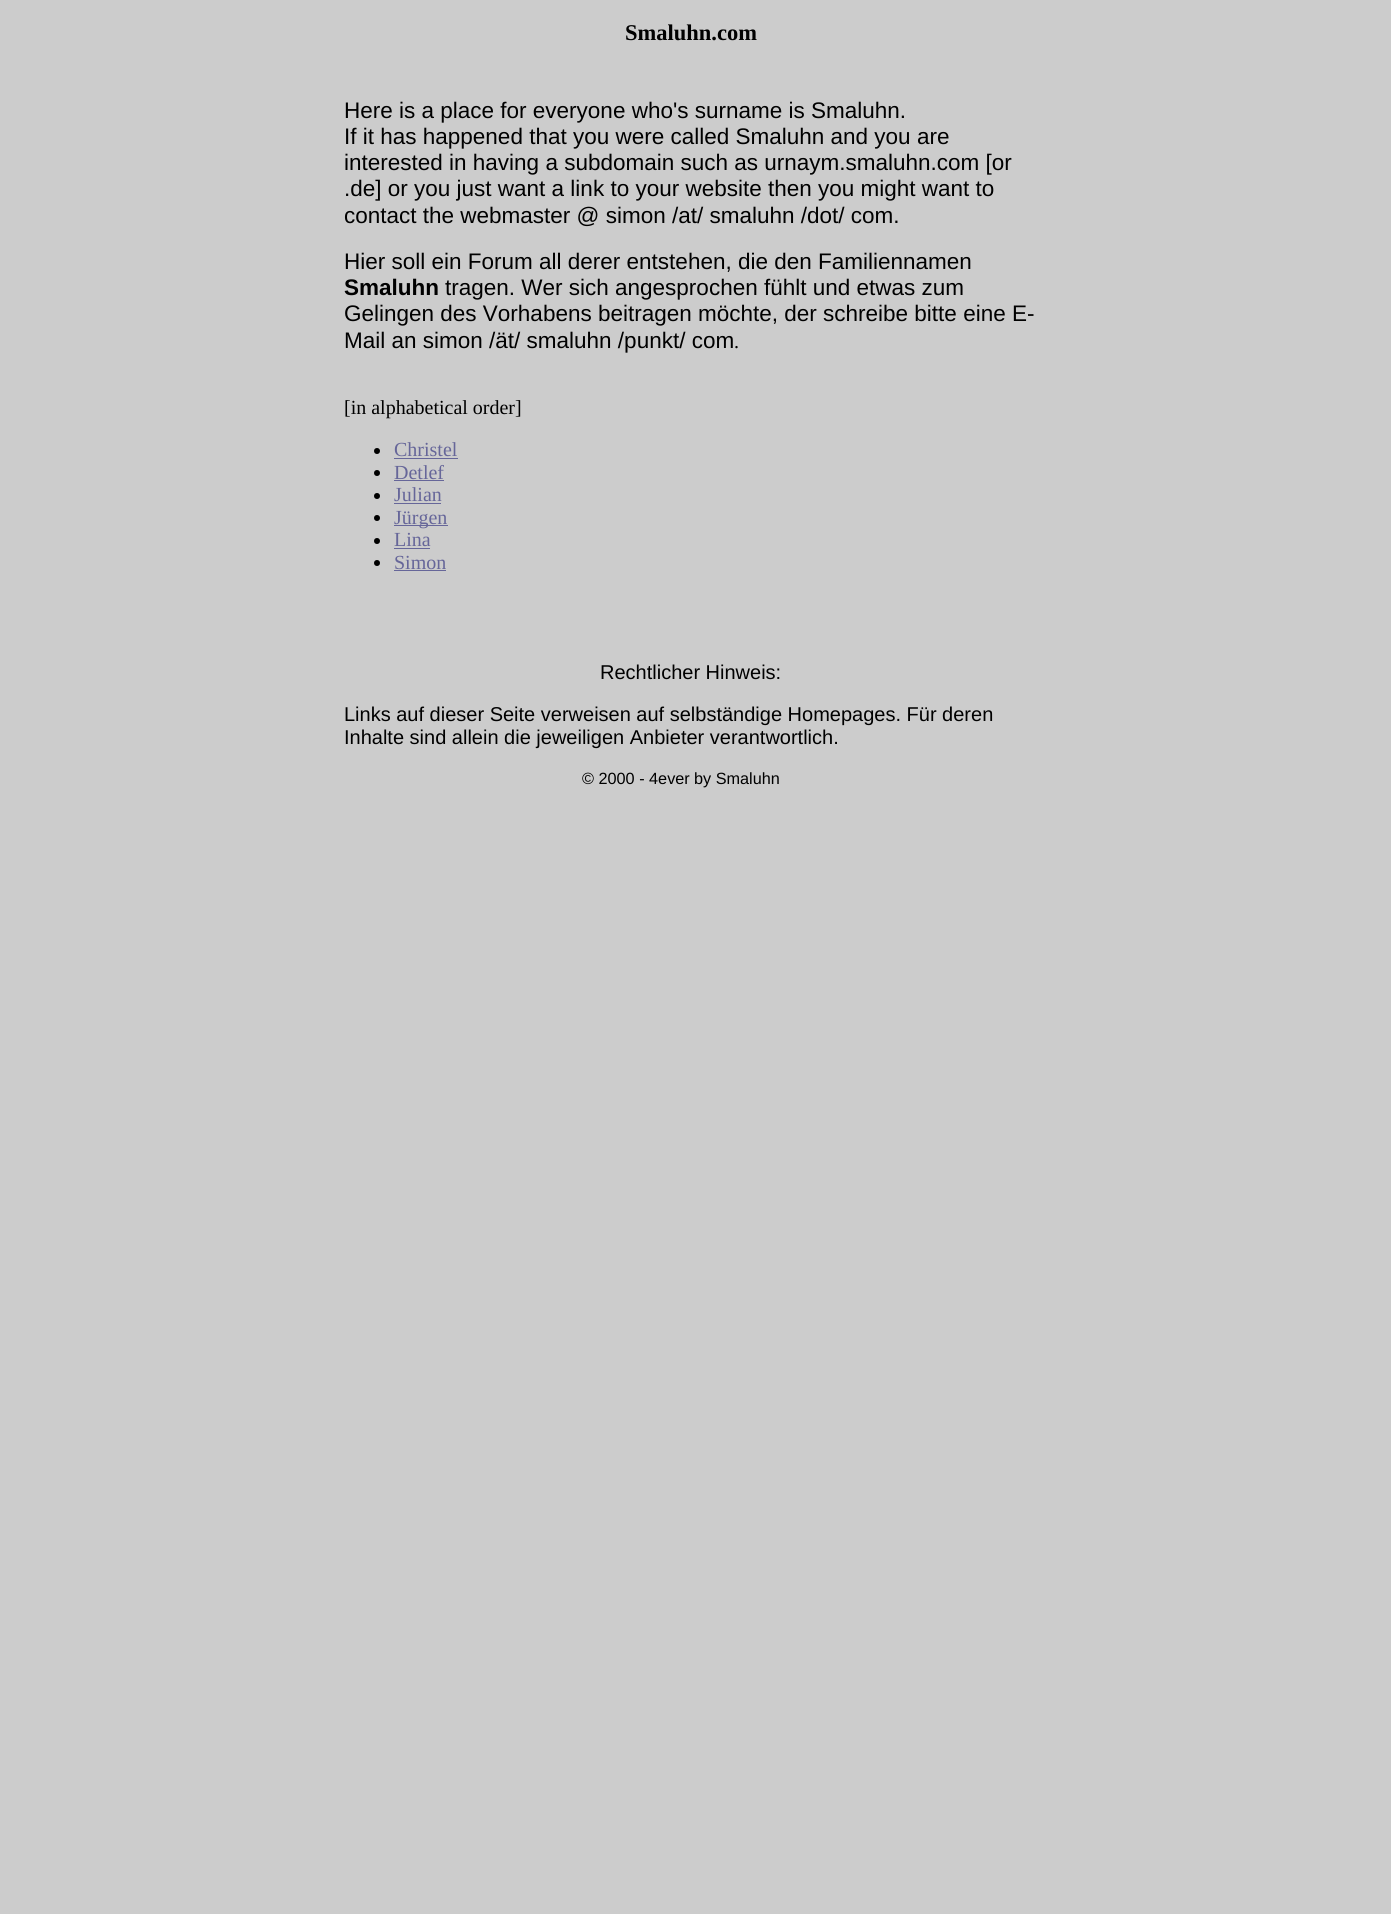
#include <cairo.h>
#include <math.h>
#include <stddef.h>

static cairo_t *ctx;

static void use_color(int r, int g, int b) {
    cairo_set_source_rgb(ctx, r / 255.0, g / 255.0, b / 255.0);
}

int main(void) {
    cairo_surface_t *surface = cairo_image_surface_create(CAIRO_FORMAT_RGB24, 1391, 1914);
    ctx = cairo_create(surface);
    cairo_font_options_t *options = cairo_font_options_create();
    cairo_font_options_set_hint_metrics(options, CAIRO_HINT_METRICS_OFF);
    cairo_font_options_set_hint_style(options, CAIRO_HINT_STYLE_NONE);
    cairo_set_font_options(ctx, options);
    cairo_set_miter_limit(ctx, 4);
    use_color(204, 204, 204);
    cairo_paint(ctx);
    cairo_select_font_face(ctx, "Liberation Serif", CAIRO_FONT_SLANT_NORMAL, CAIRO_FONT_WEIGHT_BOLD);
    cairo_set_font_size(ctx, 22.5);
    use_color(0, 0, 0);
    cairo_move_to(ctx, 625, 40);
    cairo_show_text(ctx, "Smaluhn.com");
    cairo_select_font_face(ctx, "Liberation Sans", CAIRO_FONT_SLANT_NORMAL, CAIRO_FONT_WEIGHT_NORMAL);
    cairo_move_to(ctx, 344, 118);
    cairo_show_text(ctx, "Here is a place for everyone who's surname is Smaluhn.");
    cairo_move_to(ctx, 344, 144);
    cairo_show_text(ctx, "If it has happened that you were called Smaluhn and you are");
    cairo_move_to(ctx, 344, 170);
    cairo_show_text(ctx, "interested in having a subdomain such as urnaym.smaluhn.com [or");
    cairo_move_to(ctx, 344, 196);
    cairo_show_text(ctx, ".de] or you just want a link to your website then you might want to");
    cairo_move_to(ctx, 344, 223);
    cairo_show_text(ctx, "contact the webmaster @ simon /at/ smaluhn /dot/ com.");
    cairo_move_to(ctx, 344, 269);
    cairo_show_text(ctx, "Hier soll ein Forum all derer entstehen, die den Familiennamen");
    cairo_select_font_face(ctx, "Liberation Sans", CAIRO_FONT_SLANT_NORMAL, CAIRO_FONT_WEIGHT_BOLD);
    cairo_move_to(ctx, 344, 295);
    cairo_show_text(ctx, "Smaluhn");
    cairo_select_font_face(ctx, "Liberation Sans", CAIRO_FONT_SLANT_NORMAL, CAIRO_FONT_WEIGHT_NORMAL);
    cairo_move_to(ctx, 445, 295);
    cairo_show_text(ctx, "tragen. Wer sich angesprochen fühlt und etwas zum");
    cairo_move_to(ctx, 344, 321);
    cairo_show_text(ctx, "Gelingen des Vorhabens beitragen möchte, der schreibe bitte eine E-");
    cairo_move_to(ctx, 344, 348);
    cairo_show_text(ctx, "Mail an simon /ät/ smaluhn /punkt/ com");
    cairo_select_font_face(ctx, "Liberation Serif", CAIRO_FONT_SLANT_NORMAL, CAIRO_FONT_WEIGHT_NORMAL);
    cairo_set_font_size(ctx, 20);
    cairo_move_to(ctx, 734, 348);
    cairo_show_text(ctx, ".");
    cairo_move_to(ctx, 344, 414);
    cairo_show_text(ctx, "[in alphabetical order]");
    cairo_new_path(ctx);
    cairo_arc(ctx, 377, 451, 3, 0, 2 * M_PI);
    cairo_fill(ctx);
    use_color(102, 102, 153);
    cairo_move_to(ctx, 394, 456);
    cairo_show_text(ctx, "Christel");
    cairo_rectangle(ctx, 394, 458, 64, 1);
    cairo_fill(ctx);
    use_color(0, 0, 0);
    cairo_arc(ctx, 377, 473, 3, 0, 2 * M_PI);
    cairo_fill(ctx);
    use_color(102, 102, 153);
    cairo_move_to(ctx, 394, 479);
    cairo_show_text(ctx, "Detlef");
    cairo_rectangle(ctx, 394, 480, 50, 1);
    cairo_fill(ctx);
    use_color(0, 0, 0);
    cairo_arc(ctx, 377, 496, 3, 0, 2 * M_PI);
    cairo_fill(ctx);
    use_color(102, 102, 153);
    cairo_move_to(ctx, 394, 501);
    cairo_show_text(ctx, "Julian");
    cairo_rectangle(ctx, 394, 503, 47, 1);
    cairo_fill(ctx);
    use_color(0, 0, 0);
    cairo_arc(ctx, 377, 518, 3, 0, 2 * M_PI);
    cairo_fill(ctx);
    use_color(102, 102, 153);
    cairo_rectangle(ctx, 394, 525, 54, 1);
    cairo_fill(ctx);
    cairo_move_to(ctx, 394, 524);
    cairo_show_text(ctx, "Jürgen");
    use_color(0, 0, 0);
    cairo_new_path(ctx);
    cairo_arc(ctx, 377, 541, 3, 0, 2 * M_PI);
    cairo_fill(ctx);
    use_color(102, 102, 153);
    cairo_move_to(ctx, 394, 546);
    cairo_show_text(ctx, "Lina");
    cairo_rectangle(ctx, 394, 548, 36, 1);
    cairo_fill(ctx);
    use_color(0, 0, 0);
    cairo_arc(ctx, 377, 563, 3, 0, 2 * M_PI);
    cairo_fill(ctx);
    use_color(102, 102, 153);
    cairo_move_to(ctx, 394, 569);
    cairo_show_text(ctx, "Simon");
    cairo_rectangle(ctx, 394, 570, 52, 1);
    cairo_fill(ctx);
    cairo_select_font_face(ctx, "Liberation Sans", CAIRO_FONT_SLANT_NORMAL, CAIRO_FONT_WEIGHT_NORMAL);
    use_color(0, 0, 0);
    cairo_move_to(ctx, 600, 679);
    cairo_show_text(ctx, "Rechtlicher Hinweis:");
    cairo_move_to(ctx, 344, 721);
    cairo_show_text(ctx, "Links auf dieser Seite verweisen auf selbständige Homepages. Für deren");
    cairo_move_to(ctx, 344, 744);
    cairo_show_text(ctx, "Inhalte sind allein die jeweiligen Anbieter verantwortlich.");
    cairo_set_font_size(ctx, 16.25);
    cairo_move_to(ctx, 582, 784);
    cairo_show_text(ctx, "© 2000 - 4ever");
    cairo_move_to(ctx, 694, 784);
    cairo_show_text(ctx, "by Smaluhn");
    cairo_surface_write_to_png(surface, "result.png");
    cairo_font_options_destroy(options);
    cairo_destroy(ctx);
    cairo_surface_destroy(surface);
    return 0;
}
